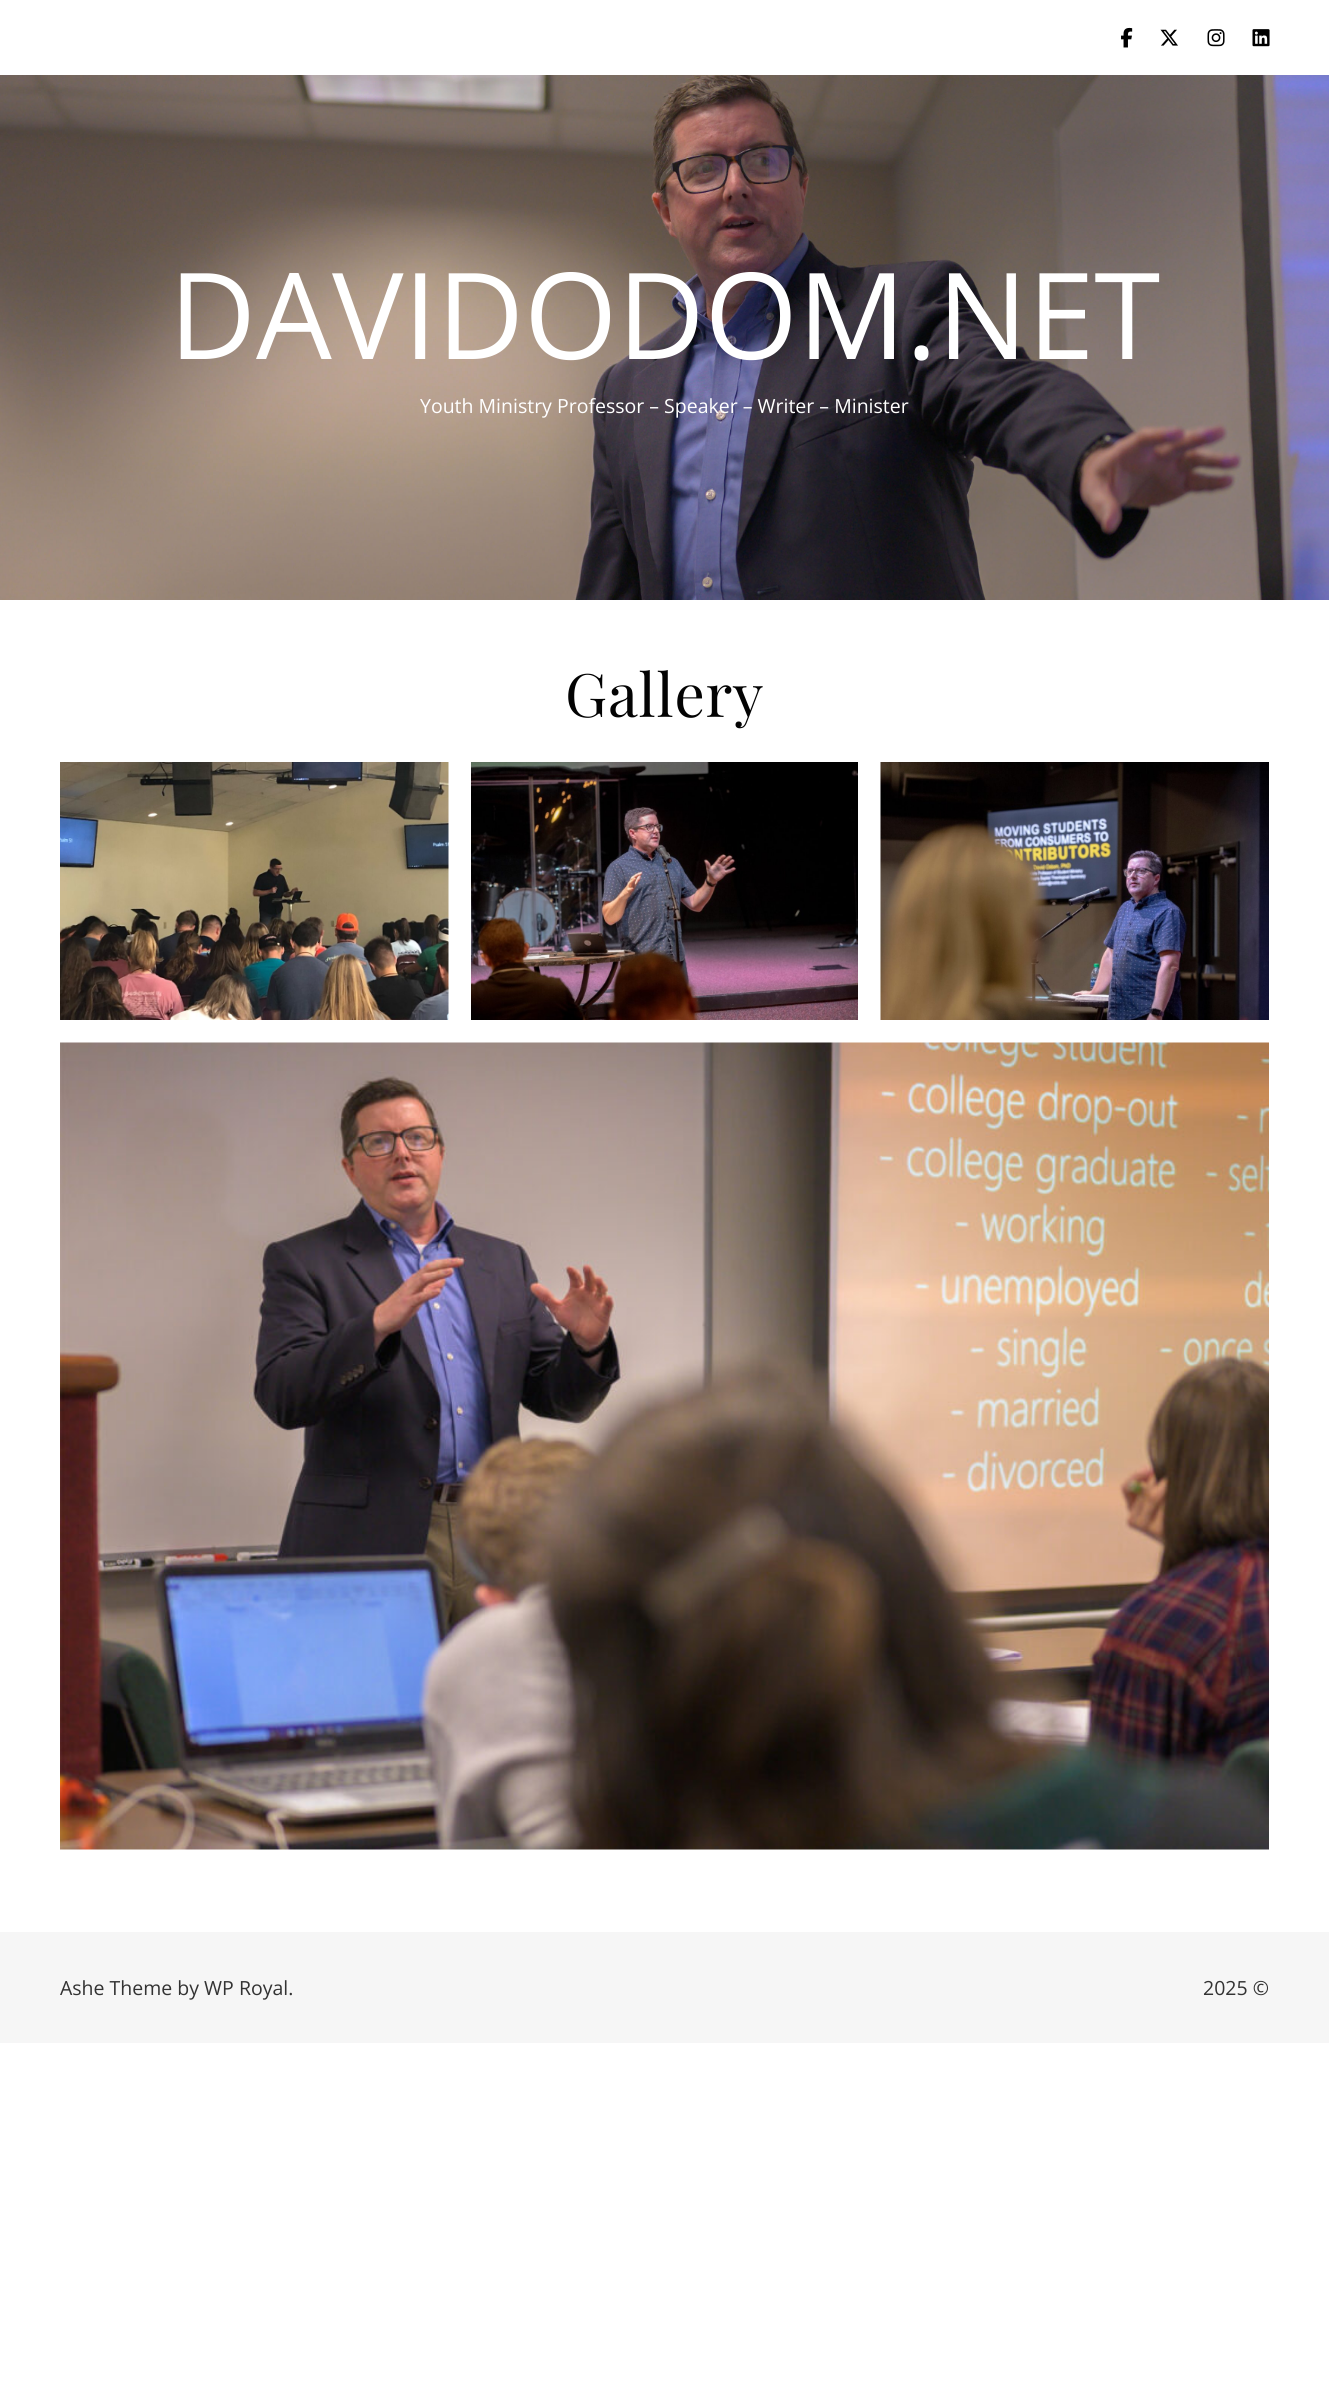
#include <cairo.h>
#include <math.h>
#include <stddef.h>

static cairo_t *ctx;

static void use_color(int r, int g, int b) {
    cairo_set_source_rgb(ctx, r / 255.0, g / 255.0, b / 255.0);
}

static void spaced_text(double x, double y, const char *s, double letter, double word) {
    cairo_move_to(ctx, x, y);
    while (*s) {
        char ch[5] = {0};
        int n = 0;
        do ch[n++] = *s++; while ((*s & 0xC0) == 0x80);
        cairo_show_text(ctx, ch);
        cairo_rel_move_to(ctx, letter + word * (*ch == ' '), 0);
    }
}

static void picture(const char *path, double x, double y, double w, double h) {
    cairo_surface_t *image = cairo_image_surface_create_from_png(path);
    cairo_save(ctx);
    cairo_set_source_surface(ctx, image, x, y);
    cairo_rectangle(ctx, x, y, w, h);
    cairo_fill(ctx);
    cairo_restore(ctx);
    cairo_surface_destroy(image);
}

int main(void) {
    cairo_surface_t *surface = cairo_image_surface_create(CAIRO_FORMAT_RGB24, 1329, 2387);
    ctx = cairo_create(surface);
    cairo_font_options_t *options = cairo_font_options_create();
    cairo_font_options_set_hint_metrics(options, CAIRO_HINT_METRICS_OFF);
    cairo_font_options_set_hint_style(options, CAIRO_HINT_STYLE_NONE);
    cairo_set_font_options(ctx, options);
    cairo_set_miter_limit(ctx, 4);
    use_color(255, 255, 255);
    cairo_paint(ctx);
    picture("img1.png", 1121, 27, 12, 21);
    picture("img2.png", 1160, 29, 18, 17);
    picture("img3.png", 1207, 29, 18, 18);
    picture("img4.png", 1252, 29, 18, 18);
    picture("img5.png", 0, 75, 1329, 525);
    cairo_select_font_face(ctx, "Open Sans", CAIRO_FONT_SLANT_NORMAL, CAIRO_FONT_WEIGHT_NORMAL);
    cairo_set_font_size(ctx, 120);
    use_color(255, 255, 255);
    cairo_move_to(ctx, 169, 359);
    cairo_show_text(ctx, "DAVIDODOM.NET");
    cairo_set_font_size(ctx, 19.5);
    cairo_move_to(ctx, 420, 413);
    cairo_show_text(ctx, "Youth Ministry Professor – Speaker – Writer – Minister");
    cairo_select_font_face(ctx, "Playfair Display", CAIRO_FONT_SLANT_NORMAL, CAIRO_FONT_WEIGHT_NORMAL);
    cairo_set_font_size(ctx, 60);
    use_color(3, 3, 3);
    spaced_text(565, 717, "Gallery", 0.75, 0);
    picture("img6.png", 60, 762, 389, 258);
    picture("img7.png", 471, 762, 387, 258);
    picture("img8.png", 880, 762, 389, 258);
    picture("img9.png", 60, 1042, 1209, 808);
    use_color(246, 246, 246);
    cairo_rectangle(ctx, 0, 1932, 1329, 111);
    cairo_fill(ctx);
    cairo_select_font_face(ctx, "Open Sans", CAIRO_FONT_SLANT_NORMAL, CAIRO_FONT_WEIGHT_NORMAL);
    cairo_set_font_size(ctx, 19.5);
    use_color(51, 51, 51);
    cairo_move_to(ctx, 60, 1995);
    cairo_show_text(ctx, "Ashe Theme by WP Royal.");
    cairo_move_to(ctx, 1203, 1995);
    cairo_show_text(ctx, "2025 ©");
    cairo_surface_write_to_png(surface, "result.png");
    cairo_font_options_destroy(options);
    cairo_destroy(ctx);
    cairo_surface_destroy(surface);
    return 0;
}
